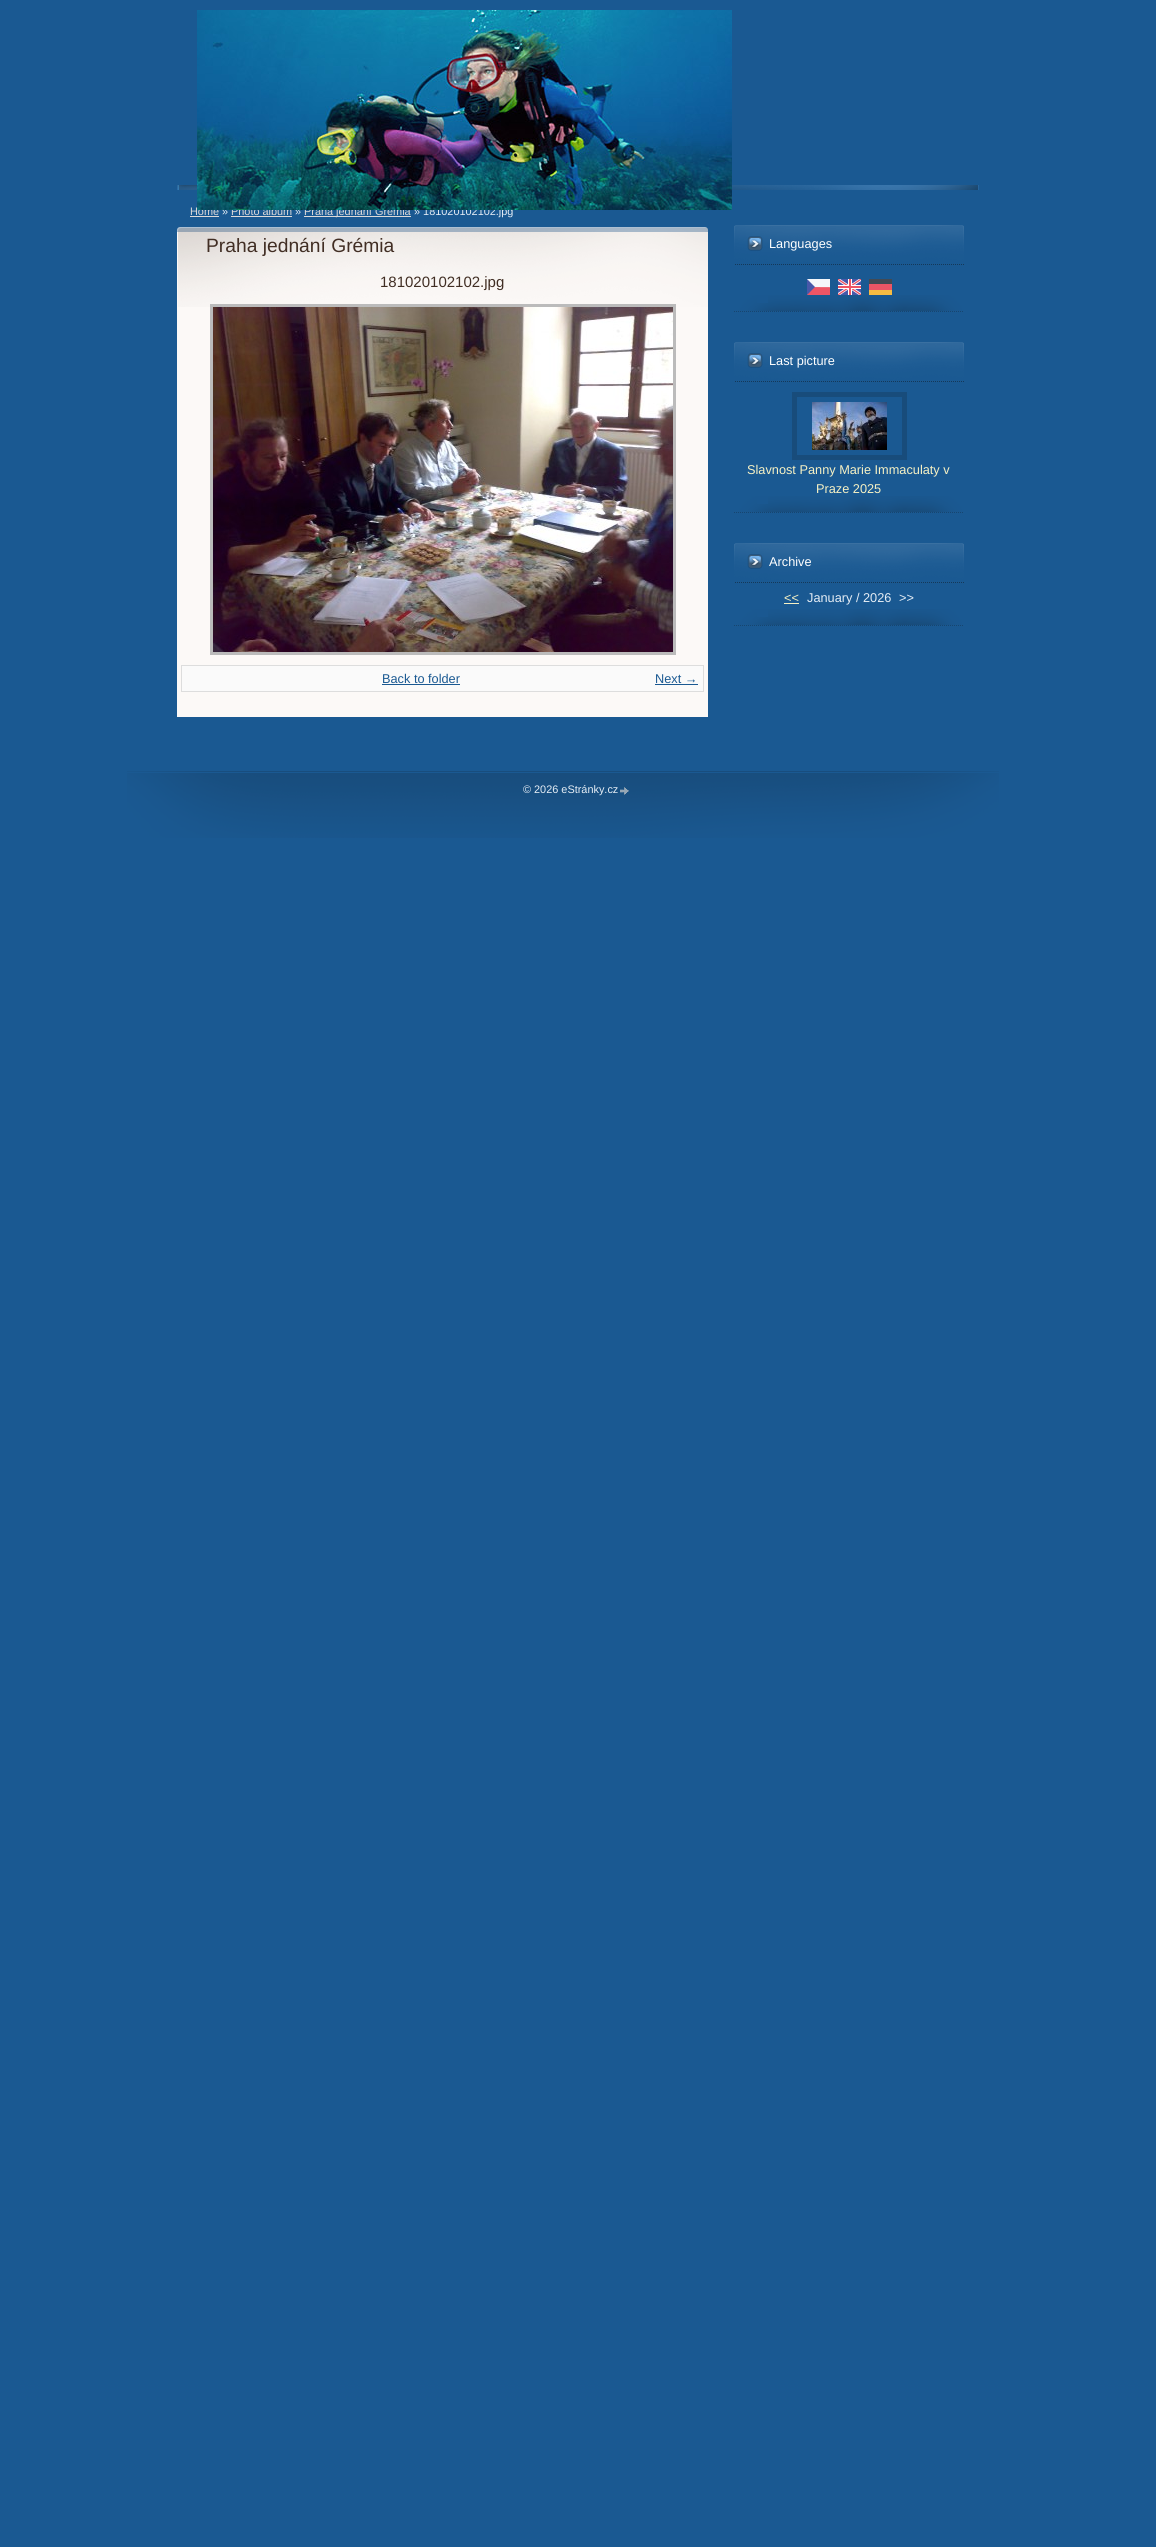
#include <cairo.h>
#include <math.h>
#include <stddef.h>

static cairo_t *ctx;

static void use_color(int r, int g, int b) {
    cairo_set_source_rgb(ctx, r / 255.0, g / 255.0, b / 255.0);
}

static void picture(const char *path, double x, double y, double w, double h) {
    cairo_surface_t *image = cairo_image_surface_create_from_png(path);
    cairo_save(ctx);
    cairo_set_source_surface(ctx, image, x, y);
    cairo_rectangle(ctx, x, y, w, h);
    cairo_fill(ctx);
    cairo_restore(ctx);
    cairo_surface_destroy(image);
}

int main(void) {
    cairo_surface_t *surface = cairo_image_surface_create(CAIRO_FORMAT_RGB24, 1156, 2547);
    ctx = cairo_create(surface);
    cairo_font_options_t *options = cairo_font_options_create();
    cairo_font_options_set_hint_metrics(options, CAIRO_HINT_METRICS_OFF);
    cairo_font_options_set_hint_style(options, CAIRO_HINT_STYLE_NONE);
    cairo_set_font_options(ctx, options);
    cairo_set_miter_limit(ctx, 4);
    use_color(26, 89, 146);
    cairo_paint(ctx);
    picture("img2.png", 177, 185, 802, 5);
    cairo_select_font_face(ctx, "Liberation Sans", CAIRO_FONT_SLANT_NORMAL, CAIRO_FONT_WEIGHT_NORMAL);
    cairo_set_font_size(ctx, 10.9);
    use_color(221, 218, 217);
    cairo_move_to(ctx, 190, 215);
    cairo_show_text(ctx, "Home");
    cairo_move_to(ctx, 231, 215);
    cairo_show_text(ctx, "Photo album");
    cairo_rectangle(ctx, 304, 216, 107, 1);
    cairo_fill(ctx);
    cairo_move_to(ctx, 304, 215);
    cairo_show_text(ctx, "Praha jednání Grémia");
    use_color(229, 237, 245);
    cairo_move_to(ctx, 414, 215);
    cairo_show_text(ctx, "» 181020102102.jpg");
    picture("img1.png", 197, 10, 535, 200);
    use_color(221, 218, 217);
    cairo_rectangle(ctx, 190, 216, 29, 1);
    cairo_fill(ctx);
    use_color(229, 237, 245);
    cairo_move_to(ctx, 222, 215);
    cairo_show_text(ctx, "»");
    use_color(221, 218, 217);
    cairo_rectangle(ctx, 231, 216, 61, 1);
    cairo_fill(ctx);
    use_color(229, 237, 245);
    cairo_move_to(ctx, 295, 215);
    cairo_show_text(ctx, "»");
    use_color(252, 249, 247);
    cairo_rectangle(ctx, 177, 307, 531, 410);
    cairo_fill(ctx);
    picture("img3.png", 177, 227, 531, 80);
    cairo_set_font_size(ctx, 19.25);
    use_color(65, 46, 36);
    cairo_move_to(ctx, 206, 252);
    cairo_show_text(ctx, "Praha jednání Grémia");
    cairo_set_font_size(ctx, 15);
    cairo_move_to(ctx, 380, 287);
    cairo_show_text(ctx, "181020102102.jpg");
    cairo_rectangle(ctx, 211.5, 305.5, 463, 348);
    use_color(187, 187, 187);
    cairo_set_line_width(ctx, 3);
    cairo_stroke(ctx);
    picture("img4.png", 213, 307, 460, 345);
    use_color(250, 250, 250);
    cairo_rectangle(ctx, 181.5, 665.5, 522, 26);
    cairo_fill_preserve(ctx);
    use_color(221, 221, 221);
    cairo_set_line_width(ctx, 1);
    cairo_stroke(ctx);
    cairo_set_font_size(ctx, 12.75);
    use_color(26, 89, 146);
    cairo_move_to(ctx, 382, 683);
    cairo_show_text(ctx, "Back to folder");
    cairo_rectangle(ctx, 382, 684, 78, 1);
    cairo_fill(ctx);
    cairo_move_to(ctx, 655, 683);
    cairo_show_text(ctx, "Next →");
    cairo_rectangle(ctx, 655, 684, 43, 1);
    cairo_fill(ctx);
    picture("img5.png", 734, 225, 230, 40);
    use_color(255, 255, 255);
    cairo_move_to(ctx, 769, 248);
    cairo_show_text(ctx, "Languages");
    picture("img6.png", 734, 295, 229, 17);
    picture("img7.png", 807, 279, 23, 16);
    picture("img8.png", 838, 279, 23, 16);
    picture("img9.png", 869, 279, 23, 16);
    picture("img5.png", 734, 342, 230, 40);
    cairo_move_to(ctx, 769, 365);
    cairo_show_text(ctx, "Last picture");
    picture("img6.png", 734, 496, 229, 17);
    cairo_rectangle(ctx, 794.5, 394.5, 110, 63);
    use_color(24, 76, 123);
    cairo_set_line_width(ctx, 5);
    cairo_stroke(ctx);
    picture("img10.png", 812, 402, 75, 48);
    use_color(246, 241, 196);
    cairo_move_to(ctx, 747, 474);
    cairo_show_text(ctx, "Slavnost Panny Marie Immaculaty v");
    cairo_move_to(ctx, 816, 493);
    cairo_show_text(ctx, "Praze 2025");
    picture("img5.png", 734, 543, 230, 40);
    use_color(255, 255, 255);
    cairo_move_to(ctx, 769, 566);
    cairo_show_text(ctx, "Archive");
    picture("img6.png", 734, 609, 229, 17);
    use_color(246, 241, 196);
    cairo_move_to(ctx, 784, 602);
    cairo_show_text(ctx, "<<");
    cairo_rectangle(ctx, 784, 603, 15, 1);
    cairo_fill(ctx);
    use_color(229, 237, 245);
    cairo_move_to(ctx, 807, 602);
    cairo_show_text(ctx, "January / 2026");
    cairo_move_to(ctx, 899, 602);
    cairo_show_text(ctx, ">>");
    picture("img11.png", 127, 771, 872, 67);
    cairo_set_font_size(ctx, 10.9);
    cairo_move_to(ctx, 523, 793);
    cairo_show_text(ctx, "© 2026 eStránky.cz");
    picture("img12.png", 620, 787, 9, 8);
    cairo_surface_write_to_png(surface, "result.png");
    cairo_font_options_destroy(options);
    cairo_destroy(ctx);
    cairo_surface_destroy(surface);
    return 0;
}
